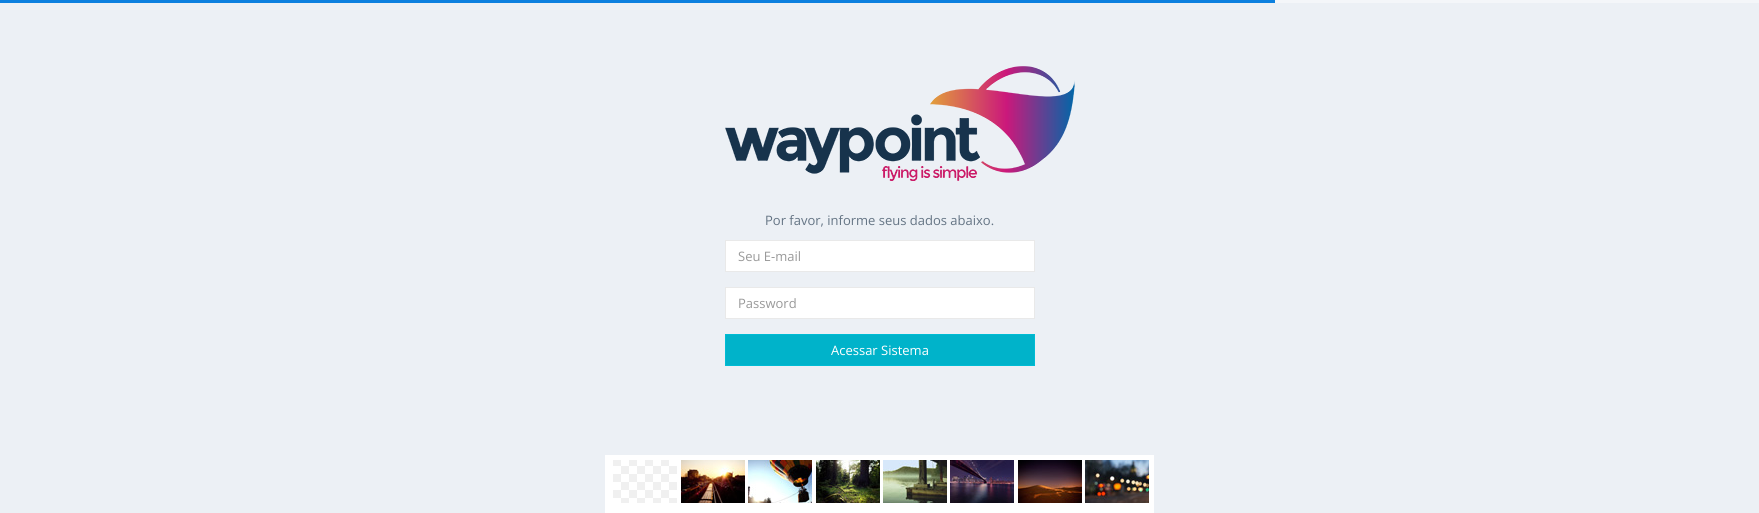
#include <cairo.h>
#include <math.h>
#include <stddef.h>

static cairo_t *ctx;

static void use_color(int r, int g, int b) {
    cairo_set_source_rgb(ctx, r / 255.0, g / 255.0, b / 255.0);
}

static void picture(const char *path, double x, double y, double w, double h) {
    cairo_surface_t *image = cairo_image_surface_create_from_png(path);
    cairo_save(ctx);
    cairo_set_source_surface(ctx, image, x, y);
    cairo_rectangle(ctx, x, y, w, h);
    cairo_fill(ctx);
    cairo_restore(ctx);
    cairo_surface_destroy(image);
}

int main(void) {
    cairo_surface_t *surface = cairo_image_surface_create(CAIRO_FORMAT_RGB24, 1759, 513);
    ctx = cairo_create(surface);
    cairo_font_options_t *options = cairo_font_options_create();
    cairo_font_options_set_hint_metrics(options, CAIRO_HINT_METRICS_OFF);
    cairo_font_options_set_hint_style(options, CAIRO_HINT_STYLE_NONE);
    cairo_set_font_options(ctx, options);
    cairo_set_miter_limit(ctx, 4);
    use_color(236, 240, 245);
    cairo_paint(ctx);
    use_color(12, 128, 223);
    cairo_rectangle(ctx, 0, 0, 1275, 3);
    cairo_fill(ctx);
    use_color(244, 246, 249);
    cairo_rectangle(ctx, 1275, 0, 484, 3);
    cairo_fill(ctx);
    picture("img1.png", 725, 66, 350, 115);
    cairo_select_font_face(ctx, "Open Sans", CAIRO_FONT_SLANT_NORMAL, CAIRO_FONT_WEIGHT_NORMAL);
    cairo_set_font_size(ctx, 13);
    use_color(100, 116, 132);
    cairo_move_to(ctx, 765, 225);
    cairo_show_text(ctx, "Por favor, informe seus dados abaixo.");
    use_color(255, 255, 255);
    cairo_rectangle(ctx, 725.5, 240.5, 309, 31);
    cairo_fill_preserve(ctx);
    use_color(233, 233, 233);
    cairo_set_line_width(ctx, 1);
    cairo_stroke(ctx);
    use_color(153, 153, 153);
    cairo_move_to(ctx, 738, 261);
    cairo_show_text(ctx, "Seu E-mail");
    use_color(255, 255, 255);
    cairo_rectangle(ctx, 725.5, 287.5, 309, 31);
    cairo_fill_preserve(ctx);
    use_color(233, 233, 233);
    cairo_stroke(ctx);
    use_color(153, 153, 153);
    cairo_move_to(ctx, 738, 308);
    cairo_show_text(ctx, "Password");
    use_color(0, 179, 202);
    cairo_rectangle(ctx, 725.5, 334.5, 309, 31);
    cairo_fill_preserve(ctx);
    use_color(0, 188, 212);
    cairo_stroke(ctx);
    use_color(255, 255, 255);
    cairo_move_to(ctx, 831, 355);
    cairo_show_text(ctx, "Acessar Sistema");
    cairo_rectangle(ctx, 605, 455, 549, 58);
    cairo_fill(ctx);
    picture("img2.png", 613, 460, 64, 43);
    picture("img3.png", 681, 460, 64, 43);
    picture("img4.png", 748, 460, 64, 43);
    picture("img5.png", 816, 460, 64, 43);
    picture("img6.png", 883, 460, 64, 43);
    picture("img7.png", 950, 460, 64, 43);
    picture("img8.png", 1018, 460, 64, 43);
    picture("img9.png", 1085, 460, 64, 43);
    cairo_surface_write_to_png(surface, "result.png");
    cairo_font_options_destroy(options);
    cairo_destroy(ctx);
    cairo_surface_destroy(surface);
    return 0;
}
